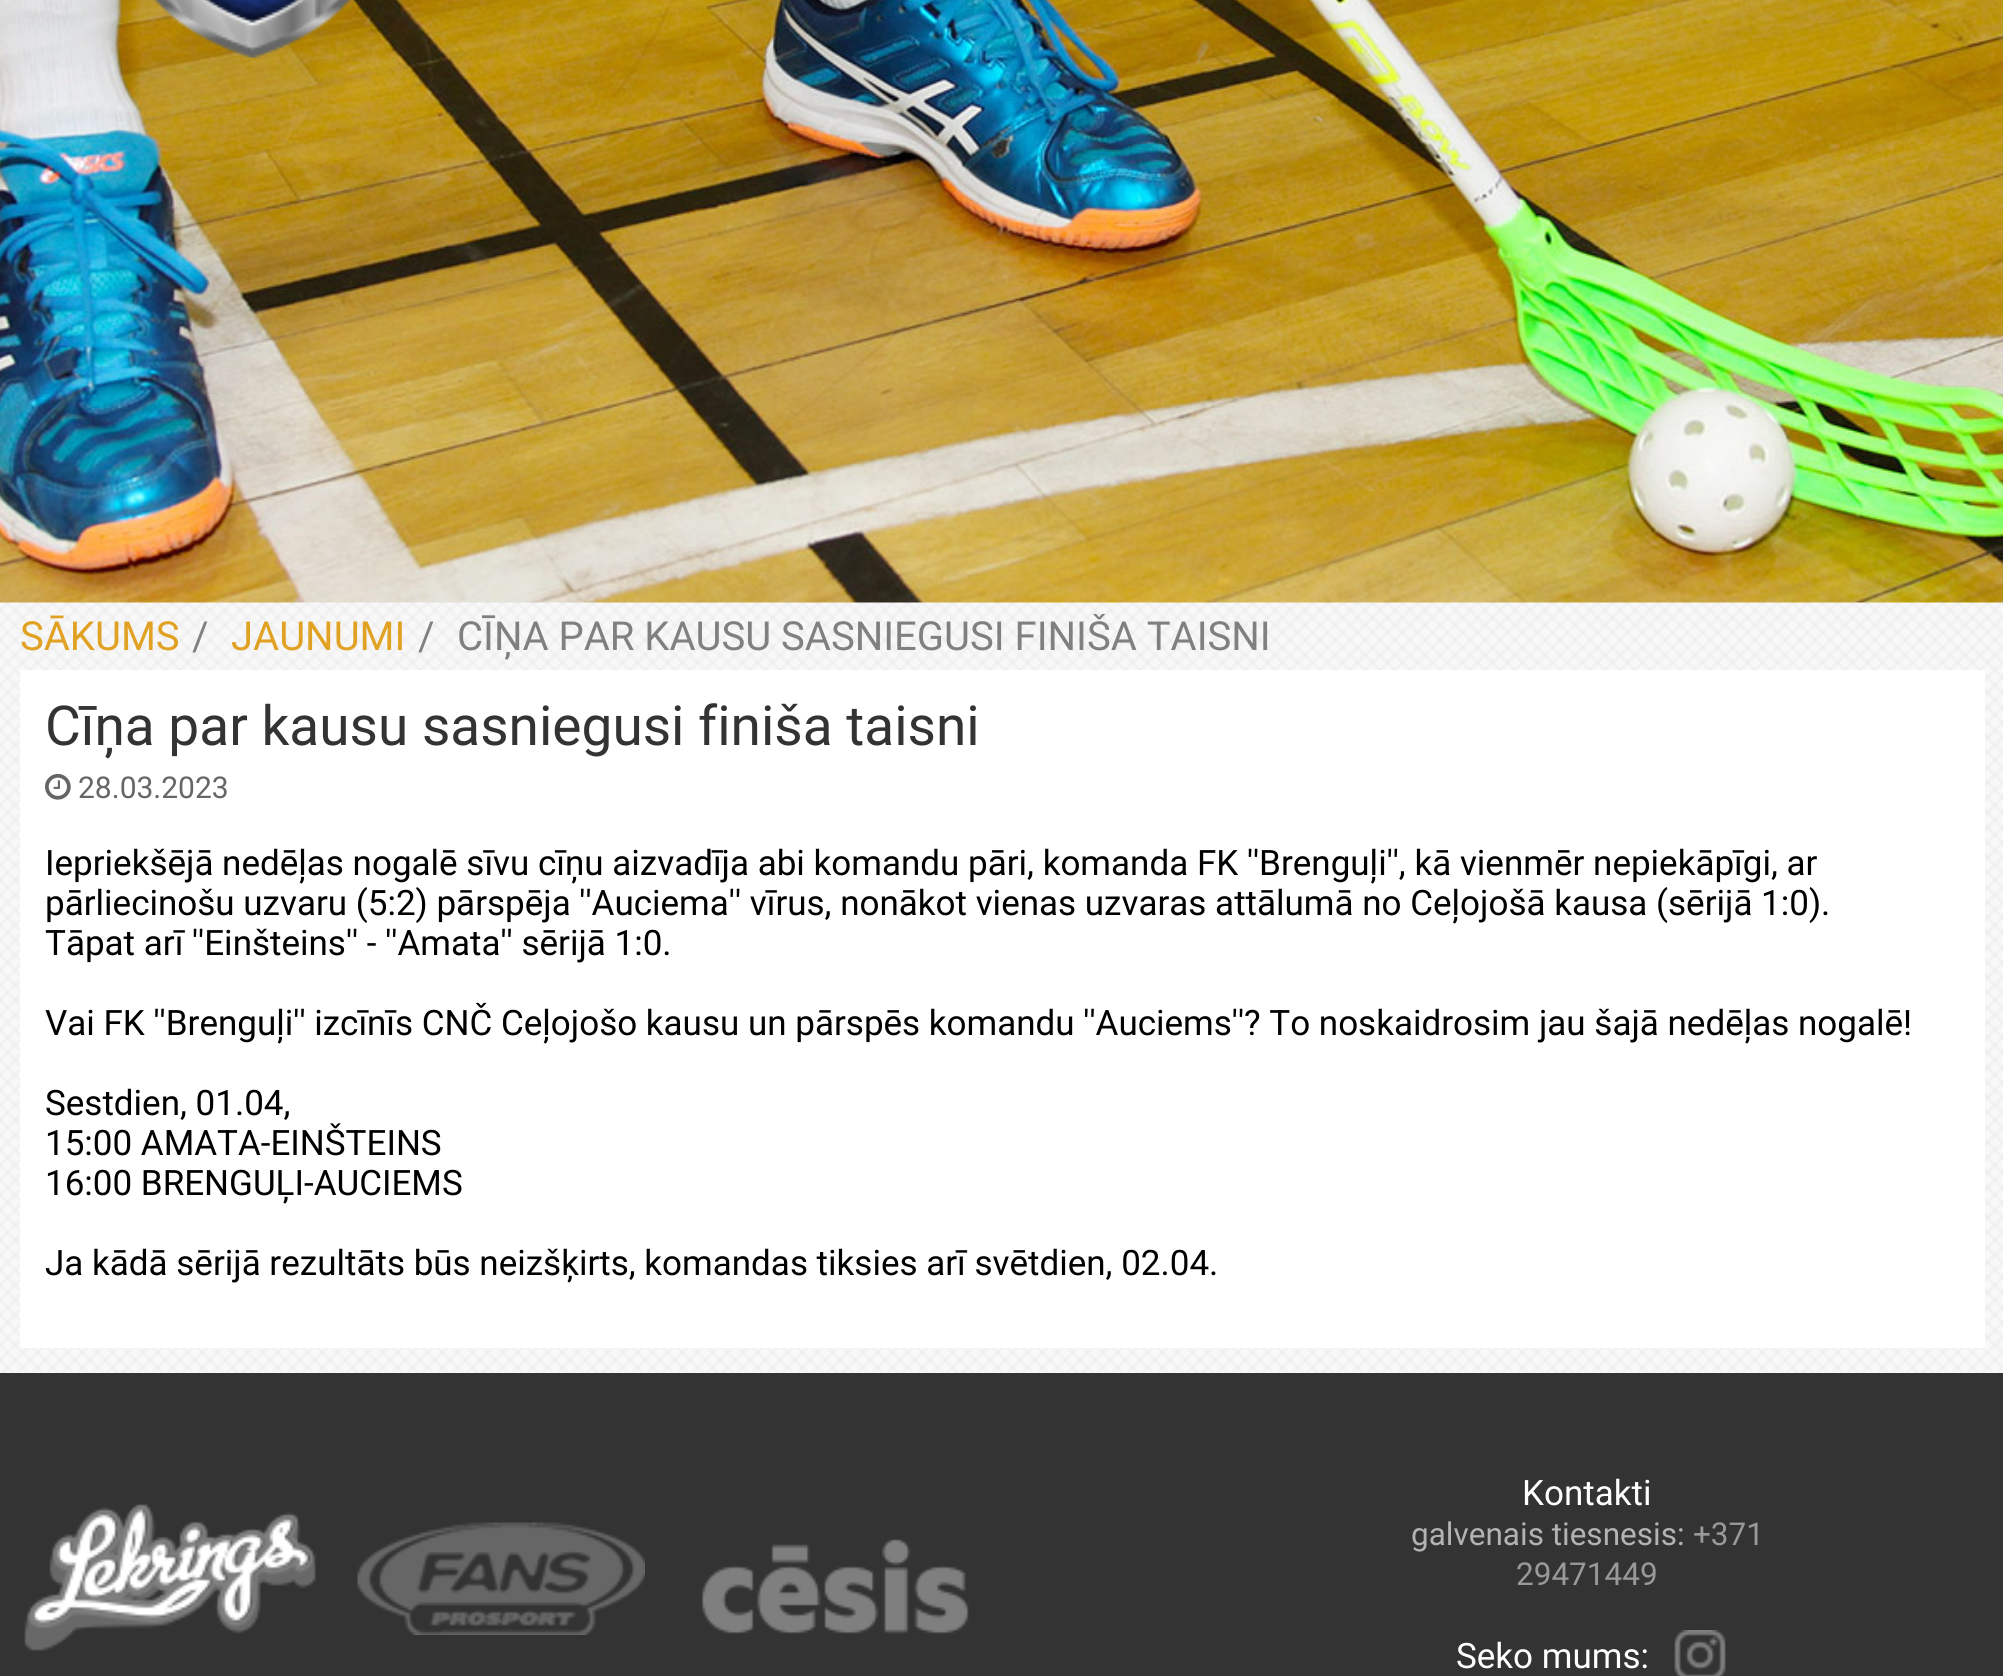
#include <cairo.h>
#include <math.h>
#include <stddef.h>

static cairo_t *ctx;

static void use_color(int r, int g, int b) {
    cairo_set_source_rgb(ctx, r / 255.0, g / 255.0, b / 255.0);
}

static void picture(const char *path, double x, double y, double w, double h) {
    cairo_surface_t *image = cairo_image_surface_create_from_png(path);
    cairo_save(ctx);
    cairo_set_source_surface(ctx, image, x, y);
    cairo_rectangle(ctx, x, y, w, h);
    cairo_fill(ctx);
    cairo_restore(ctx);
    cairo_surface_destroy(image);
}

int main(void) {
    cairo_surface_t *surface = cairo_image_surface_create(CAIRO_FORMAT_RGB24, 2003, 1676);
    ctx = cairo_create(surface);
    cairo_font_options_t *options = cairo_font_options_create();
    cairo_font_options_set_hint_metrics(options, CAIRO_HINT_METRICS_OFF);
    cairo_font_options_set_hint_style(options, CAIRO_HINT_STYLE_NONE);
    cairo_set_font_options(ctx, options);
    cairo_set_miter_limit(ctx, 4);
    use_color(255, 255, 255);
    cairo_paint(ctx);
    picture("img1.png", 0, 602, 2003, 771);
    picture("img2.png", 0, 0, 2003, 603);
    picture("img3.png", 152, 0, 201, 58);
    cairo_select_font_face(ctx, "Roboto", CAIRO_FONT_SLANT_NORMAL, CAIRO_FONT_WEIGHT_NORMAL);
    cairo_set_font_size(ctx, 40);
    use_color(225, 161, 34);
    cairo_move_to(ctx, 20, 650);
    cairo_show_text(ctx, "SĀKUMS");
    use_color(128, 128, 128);
    cairo_move_to(ctx, 192, 650);
    cairo_show_text(ctx, "/");
    use_color(225, 161, 34);
    cairo_move_to(ctx, 231, 650);
    cairo_show_text(ctx, "JAUNUMI");
    use_color(128, 128, 128);
    cairo_move_to(ctx, 418, 650);
    cairo_show_text(ctx, "/");
    cairo_move_to(ctx, 457, 650);
    cairo_show_text(ctx, "CĪŅA PAR KAUSU SASNIEGUSI FINIŠA TAISNI");
    use_color(255, 255, 255);
    cairo_rectangle(ctx, 20, 670, 1965, 678);
    cairo_fill(ctx);
    cairo_set_font_size(ctx, 55);
    use_color(51, 51, 51);
    cairo_move_to(ctx, 45, 745);
    cairo_show_text(ctx, "Cīņa par kausu sasniegusi finiša taisni");
    picture("img4.png", 45, 773, 26, 27);
    cairo_set_font_size(ctx, 30);
    use_color(102, 102, 102);
    cairo_move_to(ctx, 78, 798);
    cairo_show_text(ctx, "28.03.2023");
    cairo_set_font_size(ctx, 35);
    use_color(0, 0, 0);
    cairo_move_to(ctx, 45, 875);
    cairo_show_text(ctx, "Iepriekšējā nedēļas nogalē sīvu cīņu aizvadīja abi komandu pāri, komanda FK ''Brenguļi'', kā vienmēr nepiekāpīgi, ar");
    cairo_move_to(ctx, 45, 915);
    cairo_show_text(ctx, "pārliecinošu uzvaru (5:2) pārspēja ''Auciema'' vīrus, nonākot vienas uzvaras attālumā no Ceļojošā kausa (sērijā 1:0).");
    cairo_move_to(ctx, 45, 955);
    cairo_show_text(ctx, "Tāpat arī ''Einšteins'' - ''Amata'' sērijā 1:0.");
    cairo_move_to(ctx, 45, 1035);
    cairo_show_text(ctx, "Vai FK ''Brenguļi'' izcīnīs CNČ Ceļojošo kausu un pārspēs komandu ''Auciems''? To noskaidrosim jau šajā nedēļas nogalē!");
    cairo_move_to(ctx, 45, 1115);
    cairo_show_text(ctx, "Sestdien, 01.04,");
    cairo_move_to(ctx, 45, 1155);
    cairo_show_text(ctx, "15:00 AMATA-EINŠTEINS");
    cairo_move_to(ctx, 45, 1195);
    cairo_show_text(ctx, "16:00 BRENGUĻI-AUCIEMS");
    cairo_move_to(ctx, 45, 1275);
    cairo_show_text(ctx, "Ja kādā sērijā rezultāts būs neizšķirts, komandas tiksies arī svētdien, 02.04.");
    use_color(51, 51, 51);
    cairo_rectangle(ctx, 0, 1373, 2003, 303);
    cairo_fill(ctx);
    picture("img5.png", 24, 1504, 292, 147);
    picture("img6.png", 357, 1522, 288, 113);
    picture("img7.png", 701, 1539, 268, 95);
    use_color(255, 255, 255);
    cairo_move_to(ctx, 1522, 1505);
    cairo_show_text(ctx, "Kontakti");
    cairo_set_font_size(ctx, 31.5);
    use_color(179, 179, 179);
    cairo_move_to(ctx, 1411, 1545);
    cairo_show_text(ctx, "galvenais tiesnesis:");
    use_color(153, 153, 153);
    cairo_move_to(ctx, 1693, 1545);
    cairo_show_text(ctx, "+371");
    cairo_move_to(ctx, 1516, 1585);
    cairo_show_text(ctx, "29471449");
    cairo_set_font_size(ctx, 35);
    use_color(255, 255, 255);
    cairo_move_to(ctx, 1456, 1668);
    cairo_show_text(ctx, "Seko mums:");
    picture("img8.png", 1674, 1630, 52, 46);
    cairo_surface_write_to_png(surface, "result.png");
    cairo_font_options_destroy(options);
    cairo_destroy(ctx);
    cairo_surface_destroy(surface);
    return 0;
}
